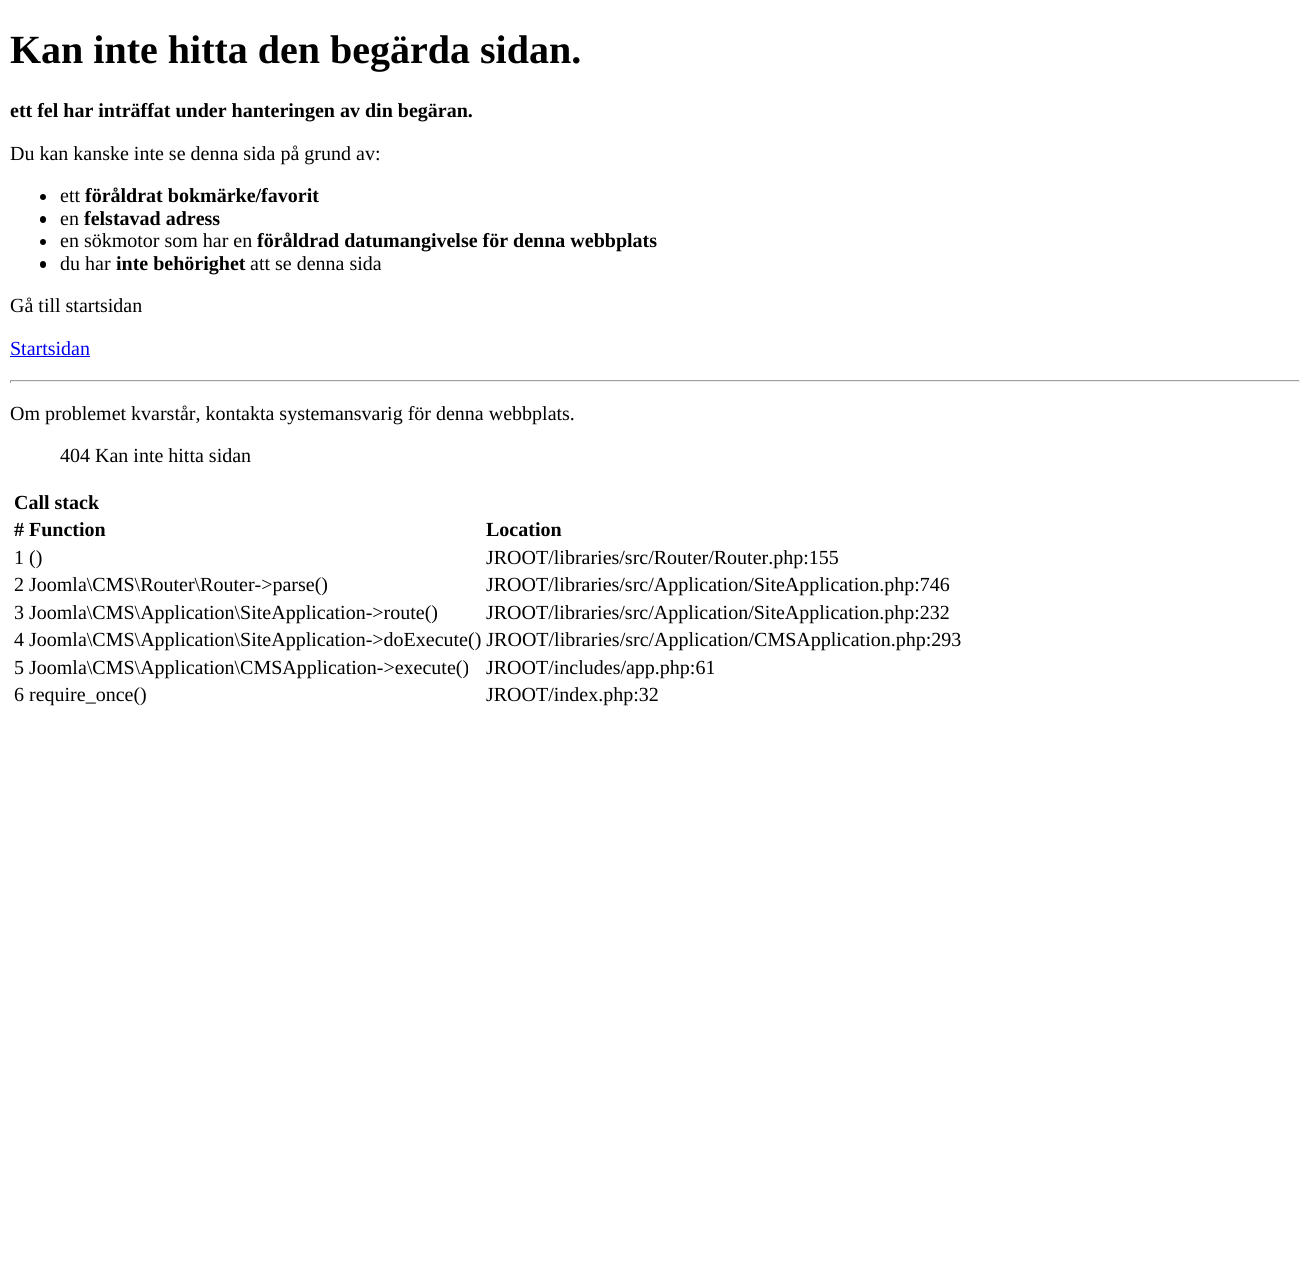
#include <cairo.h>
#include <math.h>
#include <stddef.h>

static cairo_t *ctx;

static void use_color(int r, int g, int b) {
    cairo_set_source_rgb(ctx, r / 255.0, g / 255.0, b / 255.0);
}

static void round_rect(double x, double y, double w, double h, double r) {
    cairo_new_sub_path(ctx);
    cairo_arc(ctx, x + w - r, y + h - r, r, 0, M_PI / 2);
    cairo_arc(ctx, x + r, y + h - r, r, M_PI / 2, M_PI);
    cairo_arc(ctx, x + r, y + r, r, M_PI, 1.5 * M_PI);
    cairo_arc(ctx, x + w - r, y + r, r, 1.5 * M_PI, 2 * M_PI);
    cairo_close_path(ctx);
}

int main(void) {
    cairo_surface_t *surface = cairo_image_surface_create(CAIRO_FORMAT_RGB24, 1310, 1270);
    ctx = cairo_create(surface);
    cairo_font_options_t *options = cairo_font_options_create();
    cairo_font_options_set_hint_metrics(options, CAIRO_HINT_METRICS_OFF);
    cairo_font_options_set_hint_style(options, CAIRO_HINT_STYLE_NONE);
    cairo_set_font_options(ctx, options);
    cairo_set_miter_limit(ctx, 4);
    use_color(255, 255, 255);
    cairo_paint(ctx);
    cairo_select_font_face(ctx, "Liberation Serif", CAIRO_FONT_SLANT_NORMAL, CAIRO_FONT_WEIGHT_BOLD);
    cairo_set_font_size(ctx, 40);
    use_color(0, 0, 0);
    cairo_move_to(ctx, 10, 63);
    cairo_show_text(ctx, "Kan inte hitta den begärda sidan.");
    cairo_set_font_size(ctx, 20);
    cairo_move_to(ctx, 10, 117);
    cairo_show_text(ctx, "ett fel har inträffat under hanteringen av din begäran.");
    cairo_select_font_face(ctx, "Liberation Serif", CAIRO_FONT_SLANT_NORMAL, CAIRO_FONT_WEIGHT_NORMAL);
    cairo_move_to(ctx, 10, 160);
    cairo_show_text(ctx, "Du kan kanske inte se denna sida på grund av:");
    cairo_new_path(ctx);
    cairo_arc(ctx, 43, 197, 3, 0, 2 * M_PI);
    cairo_fill(ctx);
    cairo_move_to(ctx, 60, 202);
    cairo_show_text(ctx, "ett");
    cairo_select_font_face(ctx, "Liberation Serif", CAIRO_FONT_SLANT_NORMAL, CAIRO_FONT_WEIGHT_BOLD);
    cairo_move_to(ctx, 85, 202);
    cairo_show_text(ctx, "föråldrat bokmärke/favorit");
    round_rect(40, 216, 6, 7, 3);
    cairo_fill(ctx);
    cairo_select_font_face(ctx, "Liberation Serif", CAIRO_FONT_SLANT_NORMAL, CAIRO_FONT_WEIGHT_NORMAL);
    cairo_move_to(ctx, 60, 225);
    cairo_show_text(ctx, "en");
    cairo_select_font_face(ctx, "Liberation Serif", CAIRO_FONT_SLANT_NORMAL, CAIRO_FONT_WEIGHT_BOLD);
    cairo_move_to(ctx, 84, 225);
    cairo_show_text(ctx, "felstavad adress");
    cairo_new_path(ctx);
    cairo_arc(ctx, 43, 242, 3, 0, 2 * M_PI);
    cairo_fill(ctx);
    cairo_select_font_face(ctx, "Liberation Serif", CAIRO_FONT_SLANT_NORMAL, CAIRO_FONT_WEIGHT_NORMAL);
    cairo_move_to(ctx, 60, 247);
    cairo_show_text(ctx, "en sökmotor som har en");
    cairo_select_font_face(ctx, "Liberation Serif", CAIRO_FONT_SLANT_NORMAL, CAIRO_FONT_WEIGHT_BOLD);
    cairo_move_to(ctx, 257, 247);
    cairo_show_text(ctx, "föråldrad datumangivelse för denna webbplats");
    round_rect(40, 261, 6, 7, 3);
    cairo_fill(ctx);
    cairo_select_font_face(ctx, "Liberation Serif", CAIRO_FONT_SLANT_NORMAL, CAIRO_FONT_WEIGHT_NORMAL);
    cairo_move_to(ctx, 60, 270);
    cairo_show_text(ctx, "du har");
    cairo_select_font_face(ctx, "Liberation Serif", CAIRO_FONT_SLANT_NORMAL, CAIRO_FONT_WEIGHT_BOLD);
    cairo_move_to(ctx, 116, 270);
    cairo_show_text(ctx, "inte behörighet");
    cairo_select_font_face(ctx, "Liberation Serif", CAIRO_FONT_SLANT_NORMAL, CAIRO_FONT_WEIGHT_NORMAL);
    cairo_move_to(ctx, 250, 270);
    cairo_show_text(ctx, "att se denna sida");
    cairo_move_to(ctx, 10, 312);
    cairo_show_text(ctx, "Gå till startsidan");
    use_color(0, 0, 238);
    cairo_move_to(ctx, 10, 355);
    cairo_show_text(ctx, "Startsidan");
    cairo_rectangle(ctx, 10, 356, 80, 1);
    cairo_fill(ctx);
    use_color(159, 159, 159);
    cairo_rectangle(ctx, 10, 380, 1290, 1);
    cairo_fill(ctx);
    use_color(238, 238, 238);
    cairo_rectangle(ctx, 1299, 380, 1, 3);
    cairo_fill(ctx);
    cairo_rectangle(ctx, 10, 381, 1290, 1);
    cairo_fill(ctx);
    use_color(159, 159, 159);
    cairo_rectangle(ctx, 10, 380, 1, 3);
    cairo_fill(ctx);
    use_color(0, 0, 0);
    cairo_move_to(ctx, 10, 420);
    cairo_show_text(ctx, "Om problemet kvarstår, kontakta systemansvarig för denna webbplats.");
    cairo_move_to(ctx, 60, 462);
    cairo_show_text(ctx, "404 Kan inte hitta sidan");
    cairo_select_font_face(ctx, "Liberation Serif", CAIRO_FONT_SLANT_NORMAL, CAIRO_FONT_WEIGHT_BOLD);
    cairo_move_to(ctx, 14, 509);
    cairo_show_text(ctx, "Call stack");
    cairo_move_to(ctx, 14, 536);
    cairo_show_text(ctx, "# Function");
    cairo_move_to(ctx, 486, 536);
    cairo_show_text(ctx, "Location");
    cairo_select_font_face(ctx, "Liberation Serif", CAIRO_FONT_SLANT_NORMAL, CAIRO_FONT_WEIGHT_NORMAL);
    cairo_move_to(ctx, 14, 564);
    cairo_show_text(ctx, "1 ()");
    cairo_move_to(ctx, 486, 564);
    cairo_show_text(ctx, "JROOT/libraries/src/Router/Router.php:155");
    cairo_move_to(ctx, 14, 591);
    cairo_show_text(ctx, "2 Joomla\\CMS\\Router\\Router->parse()");
    cairo_move_to(ctx, 486, 591);
    cairo_show_text(ctx, "JROOT/libraries/src/Application/SiteApplication.php:746");
    cairo_move_to(ctx, 14, 619);
    cairo_show_text(ctx, "3 Joomla\\CMS\\Application\\SiteApplication->route()");
    cairo_move_to(ctx, 486, 619);
    cairo_show_text(ctx, "JROOT/libraries/src/Application/SiteApplication.php:232");
    cairo_move_to(ctx, 14, 646);
    cairo_show_text(ctx, "4 Joomla\\CMS\\Application\\SiteApplication->doExecute() JROOT/libraries/src/Application/CMSApplication.php:293");
    cairo_move_to(ctx, 14, 674);
    cairo_show_text(ctx, "5 Joomla\\CMS\\Application\\CMSApplication->execute()");
    cairo_move_to(ctx, 486, 674);
    cairo_show_text(ctx, "JROOT/includes/app.php:61");
    cairo_move_to(ctx, 14, 701);
    cairo_show_text(ctx, "6 require_once()");
    cairo_move_to(ctx, 486, 701);
    cairo_show_text(ctx, "JROOT/index.php:32");
    cairo_surface_write_to_png(surface, "result.png");
    cairo_font_options_destroy(options);
    cairo_destroy(ctx);
    cairo_surface_destroy(surface);
    return 0;
}
